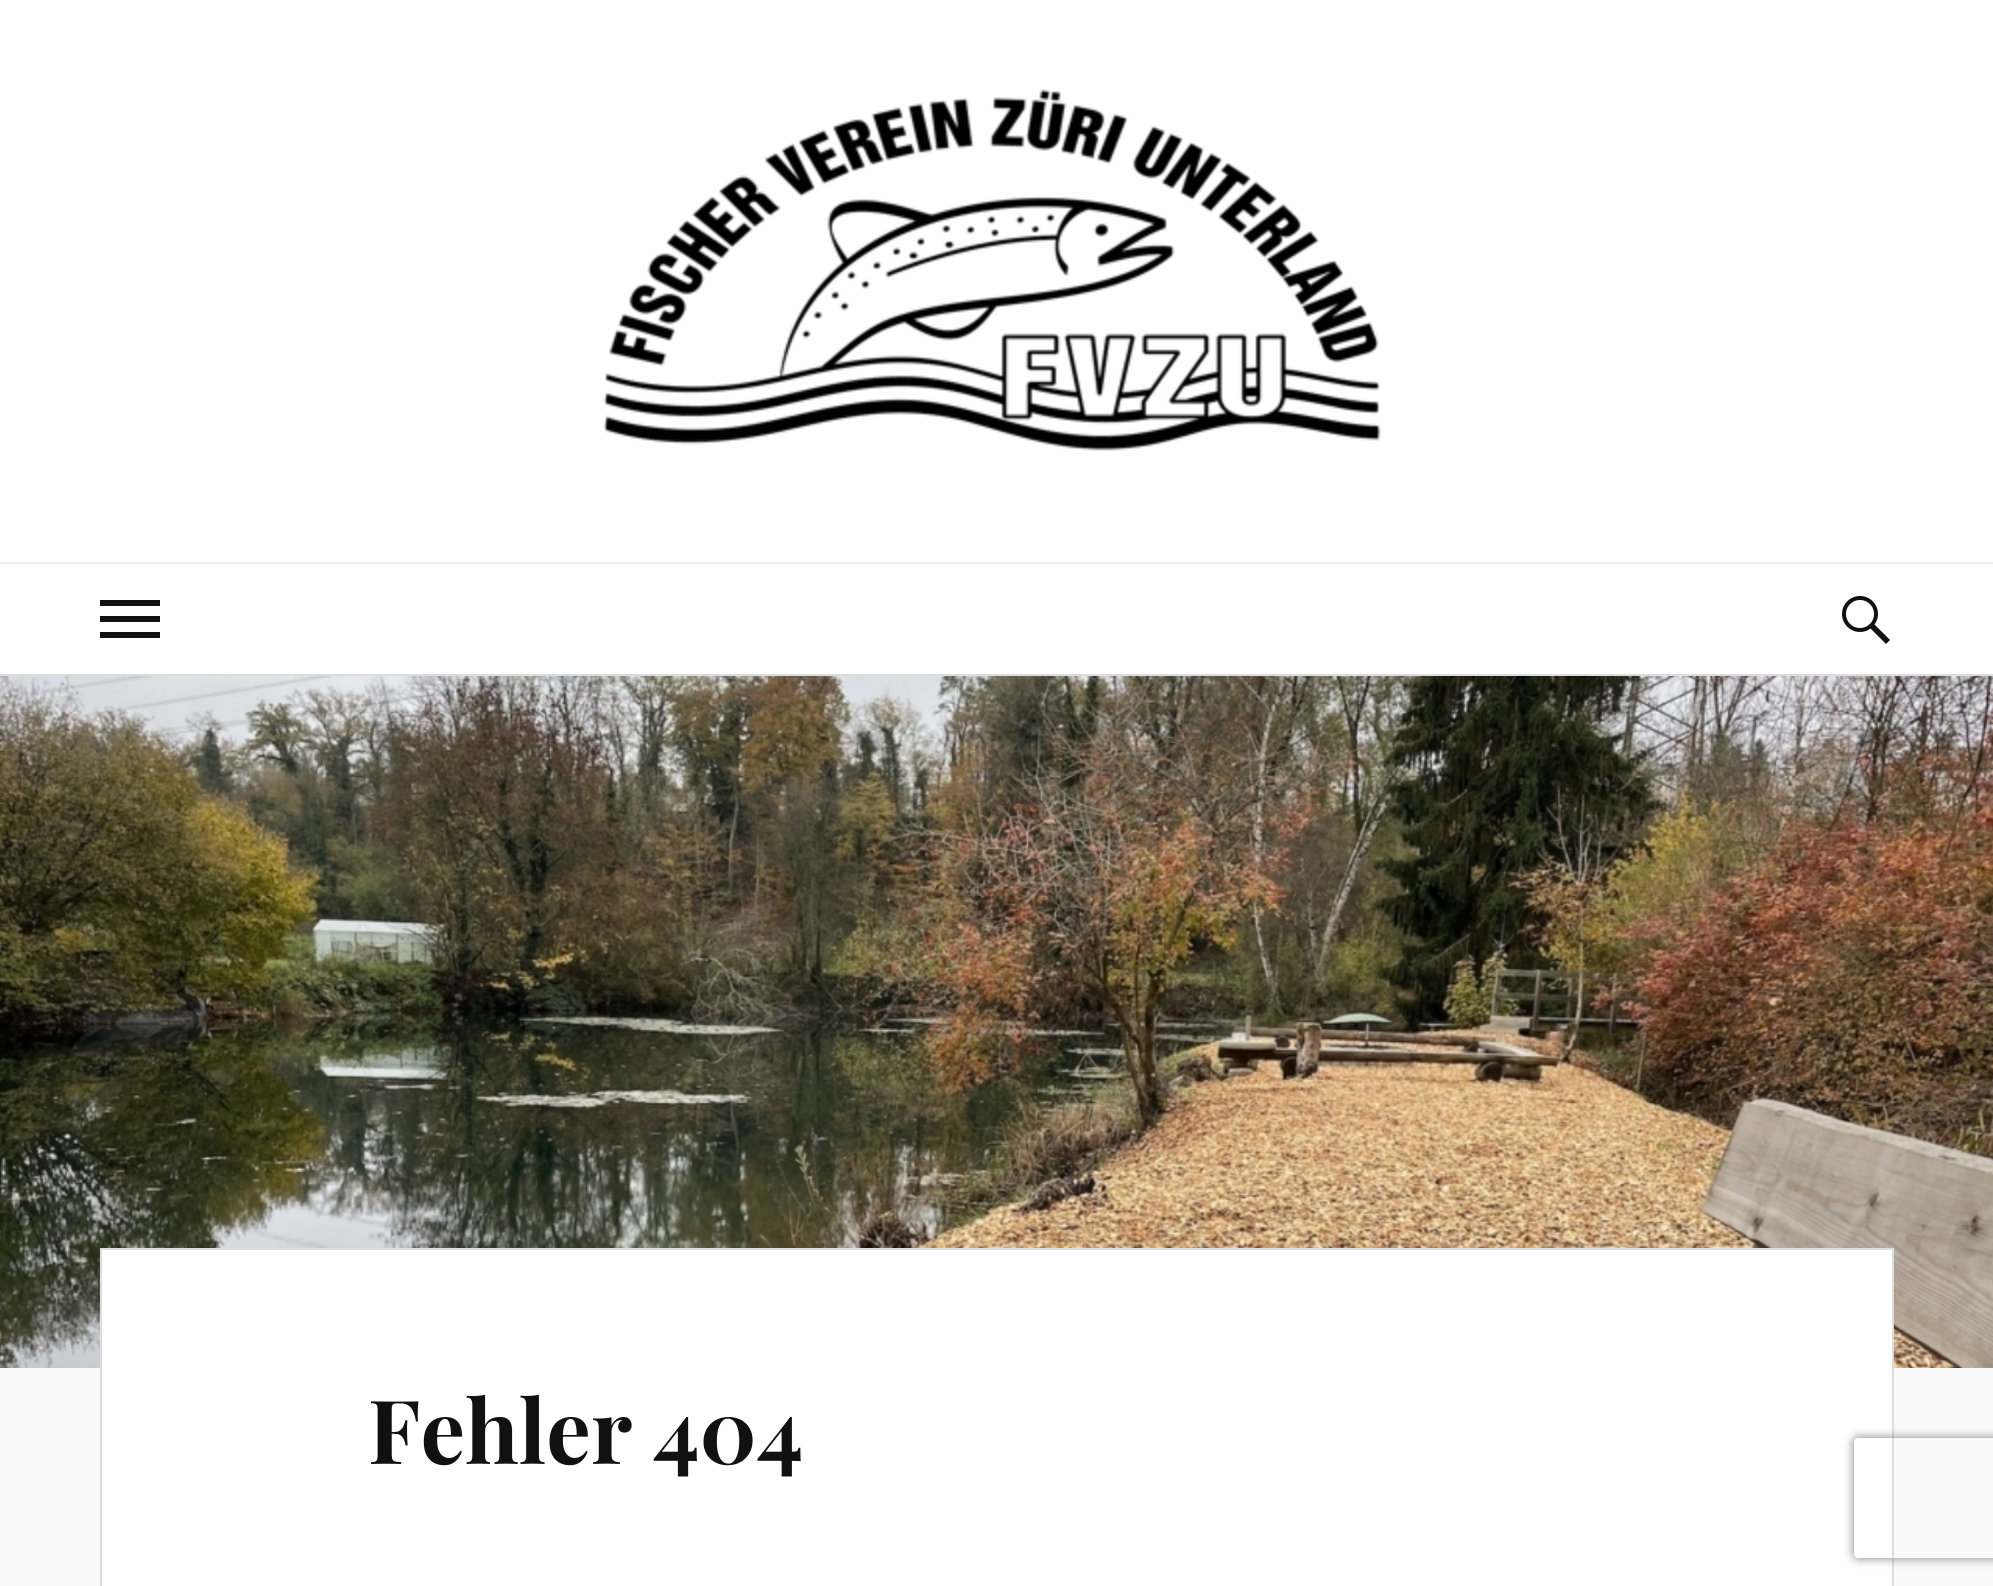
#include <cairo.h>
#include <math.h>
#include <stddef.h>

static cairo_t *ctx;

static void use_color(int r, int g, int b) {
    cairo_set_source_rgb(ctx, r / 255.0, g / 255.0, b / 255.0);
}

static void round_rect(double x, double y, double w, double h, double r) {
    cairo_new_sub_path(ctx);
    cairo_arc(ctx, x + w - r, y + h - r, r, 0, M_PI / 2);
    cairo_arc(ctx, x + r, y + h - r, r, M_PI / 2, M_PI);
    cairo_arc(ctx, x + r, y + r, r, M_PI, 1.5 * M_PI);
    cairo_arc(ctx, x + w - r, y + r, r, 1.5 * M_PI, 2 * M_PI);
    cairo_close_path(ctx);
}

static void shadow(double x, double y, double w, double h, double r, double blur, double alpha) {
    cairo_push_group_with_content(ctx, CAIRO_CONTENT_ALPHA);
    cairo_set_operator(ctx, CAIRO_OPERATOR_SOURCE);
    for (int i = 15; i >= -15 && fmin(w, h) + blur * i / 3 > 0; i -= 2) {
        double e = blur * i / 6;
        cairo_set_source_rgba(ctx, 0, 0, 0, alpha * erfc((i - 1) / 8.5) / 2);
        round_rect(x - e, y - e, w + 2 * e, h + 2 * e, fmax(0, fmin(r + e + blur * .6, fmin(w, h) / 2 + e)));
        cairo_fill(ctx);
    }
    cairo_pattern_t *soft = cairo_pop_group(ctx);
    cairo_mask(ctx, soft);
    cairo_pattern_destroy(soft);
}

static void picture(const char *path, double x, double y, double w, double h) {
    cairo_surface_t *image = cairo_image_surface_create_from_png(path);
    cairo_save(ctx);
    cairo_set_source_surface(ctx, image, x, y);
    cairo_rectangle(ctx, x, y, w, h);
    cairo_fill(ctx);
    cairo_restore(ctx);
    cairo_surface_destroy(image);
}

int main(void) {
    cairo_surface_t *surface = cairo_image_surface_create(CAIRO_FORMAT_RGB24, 1993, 1586);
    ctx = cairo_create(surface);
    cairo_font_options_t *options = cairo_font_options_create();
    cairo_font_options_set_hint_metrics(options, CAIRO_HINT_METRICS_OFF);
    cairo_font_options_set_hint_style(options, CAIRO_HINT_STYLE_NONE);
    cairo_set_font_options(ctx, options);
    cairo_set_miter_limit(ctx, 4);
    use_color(250, 250, 250);
    cairo_paint(ctx);
    use_color(255, 255, 255);
    cairo_rectangle(ctx, 0, 0, 1993, 562);
    cairo_fill(ctx);
    picture("img1.png", 603, 89, 778, 362);
    cairo_rectangle(ctx, 0, 564, 1993, 110);
    cairo_fill(ctx);
    use_color(238, 238, 238);
    cairo_rectangle(ctx, 0, 562, 1993, 2);
    cairo_fill(ctx);
    use_color(17, 17, 17);
    cairo_rectangle(ctx, 100, 600, 60, 6);
    cairo_fill(ctx);
    cairo_rectangle(ctx, 100, 616, 60, 6);
    cairo_fill(ctx);
    cairo_rectangle(ctx, 100, 632, 60, 6);
    cairo_fill(ctx);
    picture("img2.png", 1842, 596, 48, 48);
    use_color(221, 221, 221);
    cairo_rectangle(ctx, 0, 674, 1993, 2);
    cairo_fill(ctx);
    picture("img3.png", 0, 676, 1993, 692);
    use_color(255, 255, 255);
    cairo_rectangle(ctx, 101, 1249, 1792, 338);
    cairo_fill_preserve(ctx);
    use_color(221, 221, 221);
    cairo_stroke(ctx);
    cairo_select_font_face(ctx, "Playfair Display", CAIRO_FONT_SLANT_NORMAL, CAIRO_FONT_WEIGHT_BOLD);
    cairo_set_font_size(ctx, 88.5);
    use_color(17, 17, 17);
    cairo_move_to(ctx, 368, 1464);
    cairo_show_text(ctx, "Fehler 404");
    cairo_save(ctx);
    cairo_set_fill_rule(ctx, CAIRO_FILL_RULE_EVEN_ODD);
    cairo_new_path(ctx);
    cairo_move_to(ctx, 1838, 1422);
    cairo_line_to(ctx, 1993, 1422);
    cairo_line_to(ctx, 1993, 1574);
    cairo_line_to(ctx, 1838, 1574);
    cairo_close_path(ctx);
    cairo_move_to(ctx, 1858, 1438);
    cairo_line_to(ctx, 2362, 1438);
    cairo_curve_to(ctx, 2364, 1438, 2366, 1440, 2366, 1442);
    cairo_line_to(ctx, 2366, 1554);
    cairo_curve_to(ctx, 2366, 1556, 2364, 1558, 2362, 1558);
    cairo_line_to(ctx, 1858, 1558);
    cairo_curve_to(ctx, 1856, 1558, 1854, 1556, 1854, 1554);
    cairo_line_to(ctx, 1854, 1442);
    cairo_curve_to(ctx, 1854, 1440, 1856, 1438, 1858, 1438);
    cairo_close_path(ctx);
    cairo_clip(ctx);
    use_color(128, 128, 128);
    shadow(1854, 1438, 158, 120, 4, 5, 1);
    cairo_restore(ctx);
    cairo_surface_write_to_png(surface, "result.png");
    cairo_font_options_destroy(options);
    cairo_destroy(ctx);
    cairo_surface_destroy(surface);
    return 0;
}
